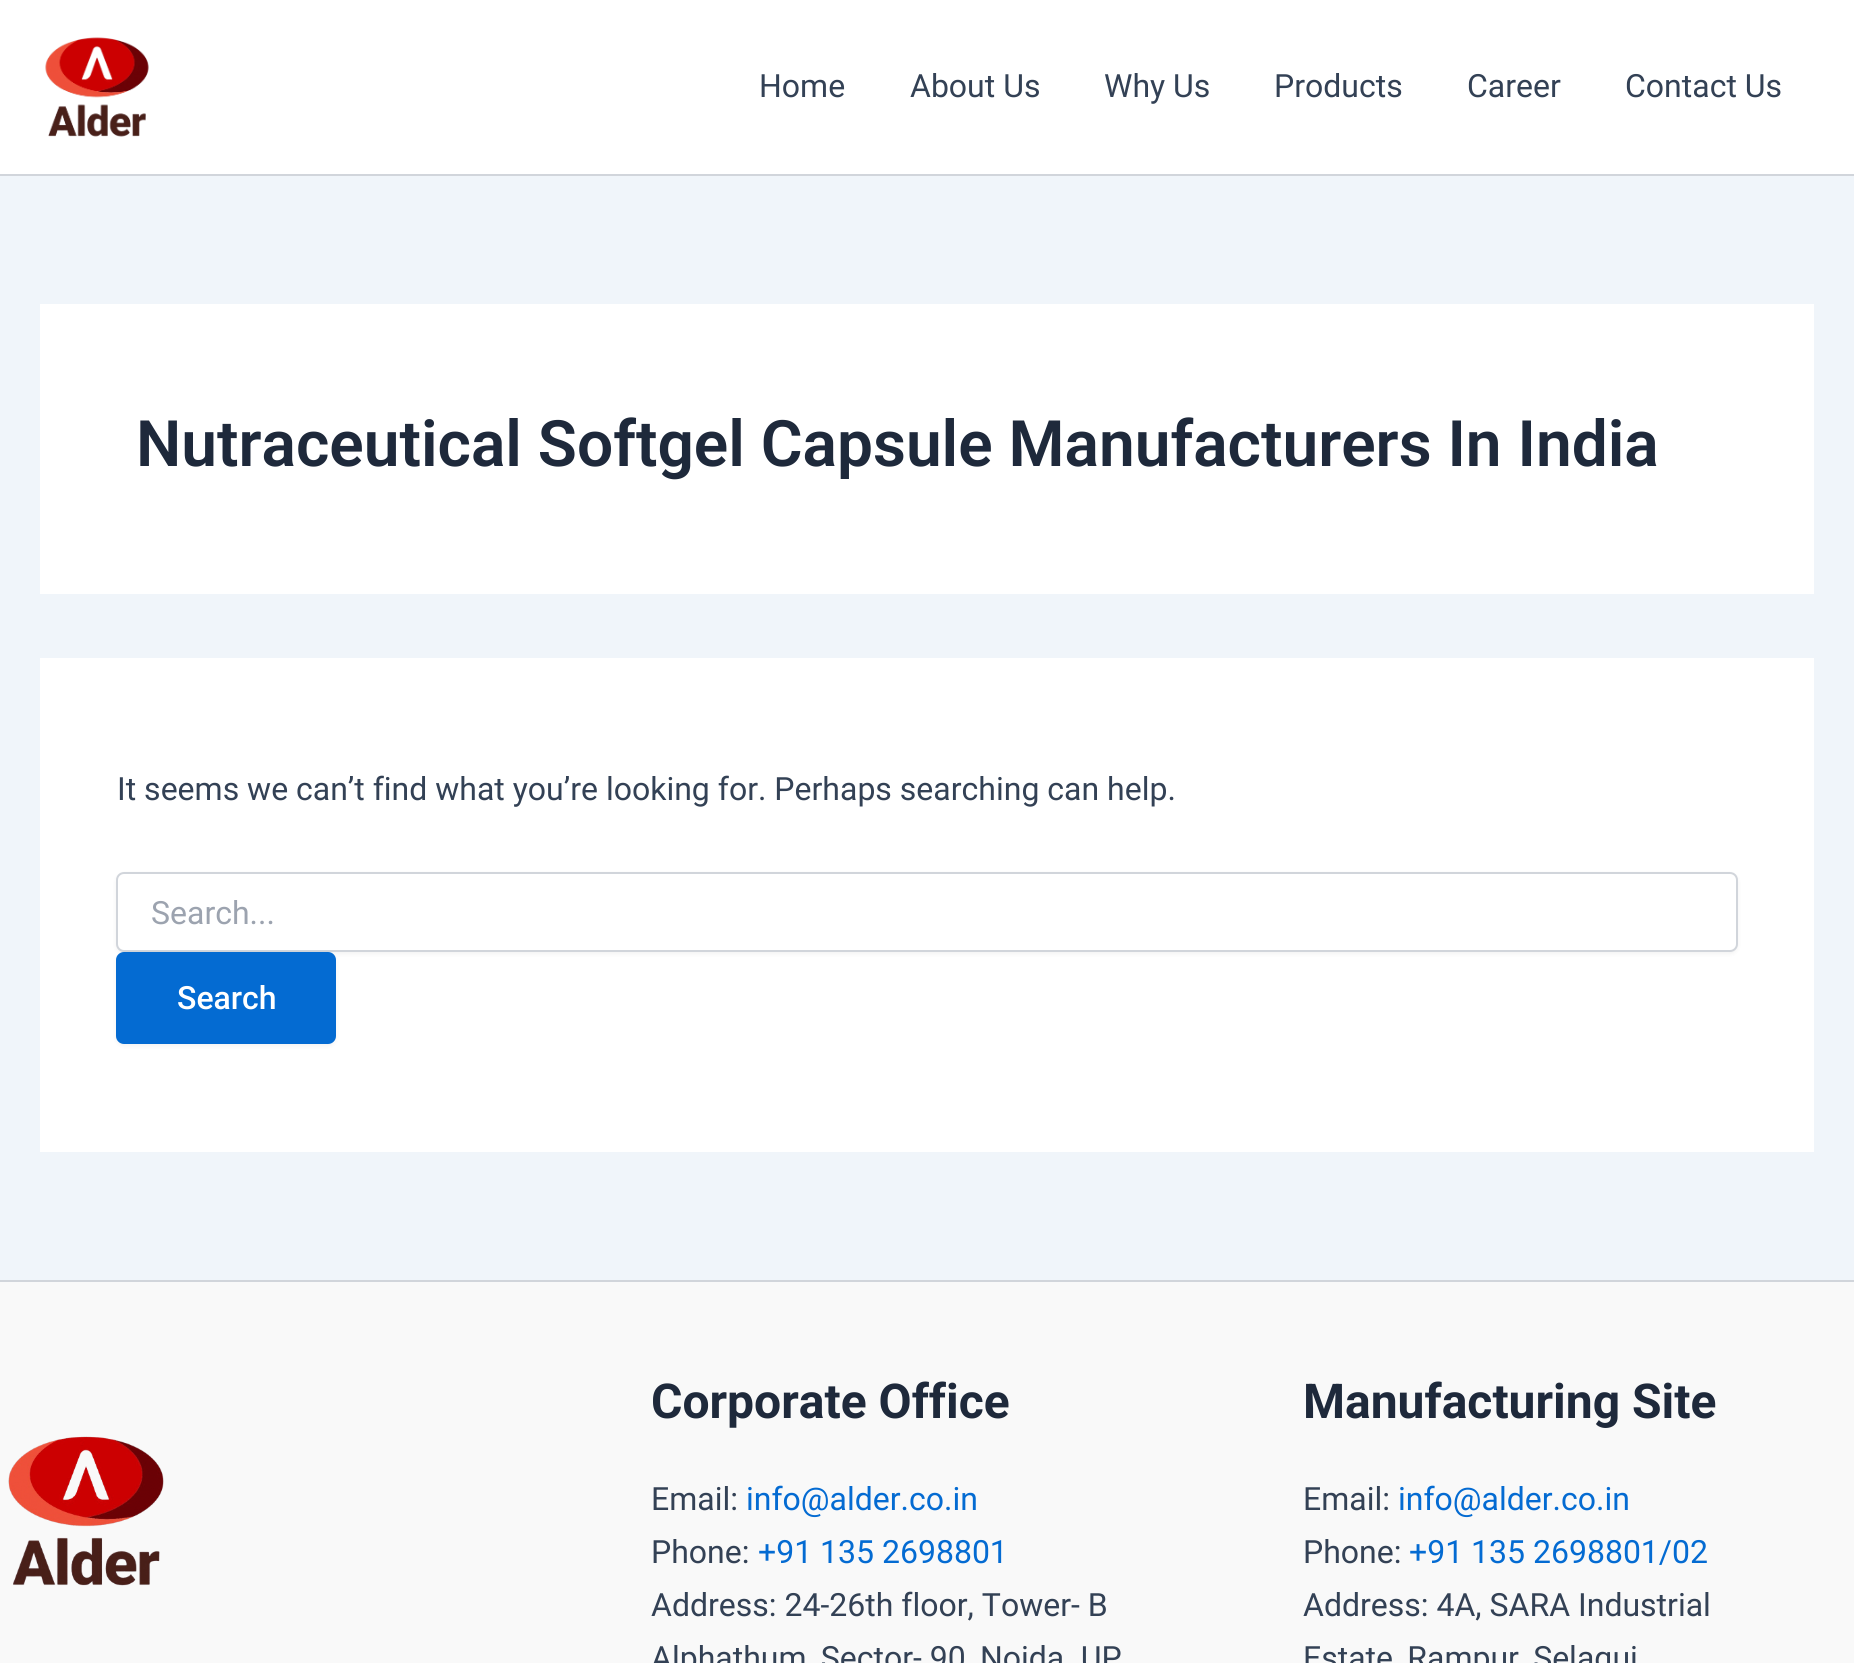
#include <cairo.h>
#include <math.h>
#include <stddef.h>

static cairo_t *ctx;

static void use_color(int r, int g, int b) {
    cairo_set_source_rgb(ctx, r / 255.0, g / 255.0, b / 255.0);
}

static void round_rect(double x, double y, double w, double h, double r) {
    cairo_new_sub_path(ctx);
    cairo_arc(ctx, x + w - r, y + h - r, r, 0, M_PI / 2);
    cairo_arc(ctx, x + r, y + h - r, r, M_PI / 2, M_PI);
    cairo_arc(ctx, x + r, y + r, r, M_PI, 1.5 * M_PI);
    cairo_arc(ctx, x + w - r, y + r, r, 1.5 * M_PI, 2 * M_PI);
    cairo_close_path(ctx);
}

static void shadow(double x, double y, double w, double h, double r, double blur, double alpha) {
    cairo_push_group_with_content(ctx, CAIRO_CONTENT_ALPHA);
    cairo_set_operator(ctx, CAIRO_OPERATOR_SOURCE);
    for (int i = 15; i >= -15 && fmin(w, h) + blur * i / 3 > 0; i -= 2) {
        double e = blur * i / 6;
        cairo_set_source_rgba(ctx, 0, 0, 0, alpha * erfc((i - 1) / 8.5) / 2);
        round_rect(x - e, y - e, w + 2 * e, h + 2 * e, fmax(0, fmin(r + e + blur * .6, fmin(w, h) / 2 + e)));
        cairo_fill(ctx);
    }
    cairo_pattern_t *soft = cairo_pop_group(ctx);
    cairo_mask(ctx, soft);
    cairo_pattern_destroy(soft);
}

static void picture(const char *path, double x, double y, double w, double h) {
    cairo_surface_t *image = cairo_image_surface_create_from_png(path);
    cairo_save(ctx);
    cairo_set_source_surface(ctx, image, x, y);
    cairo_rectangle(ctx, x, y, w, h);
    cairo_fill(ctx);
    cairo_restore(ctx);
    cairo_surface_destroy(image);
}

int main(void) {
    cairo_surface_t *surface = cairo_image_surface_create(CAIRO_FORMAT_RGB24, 1854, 1663);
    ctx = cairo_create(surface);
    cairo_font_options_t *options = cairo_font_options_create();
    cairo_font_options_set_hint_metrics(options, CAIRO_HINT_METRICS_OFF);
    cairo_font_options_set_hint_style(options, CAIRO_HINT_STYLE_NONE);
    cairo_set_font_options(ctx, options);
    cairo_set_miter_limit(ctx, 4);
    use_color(240, 245, 250);
    cairo_paint(ctx);
    use_color(255, 255, 255);
    cairo_rectangle(ctx, 0, 0, 1854, 174);
    cairo_fill(ctx);
    use_color(209, 213, 219);
    cairo_rectangle(ctx, 0, 174, 1854, 2);
    cairo_fill(ctx);
    picture("img1.png", 45, 37, 104, 100);
    cairo_select_font_face(ctx, "Roboto", CAIRO_FONT_SLANT_NORMAL, CAIRO_FONT_WEIGHT_NORMAL);
    cairo_set_font_size(ctx, 32);
    use_color(51, 65, 85);
    cairo_move_to(ctx, 759, 97);
    cairo_show_text(ctx, "Home");
    cairo_move_to(ctx, 910, 97);
    cairo_show_text(ctx, "About Us");
    cairo_move_to(ctx, 1104, 97);
    cairo_show_text(ctx, "Why Us");
    cairo_move_to(ctx, 1274, 97);
    cairo_show_text(ctx, "Products");
    cairo_move_to(ctx, 1467, 97);
    cairo_show_text(ctx, "Career");
    cairo_move_to(ctx, 1625, 97);
    cairo_show_text(ctx, "Contact Us");
    use_color(255, 255, 255);
    cairo_rectangle(ctx, 40, 304, 1774, 290);
    cairo_fill(ctx);
    cairo_select_font_face(ctx, "Roboto SemiBold", CAIRO_FONT_SLANT_NORMAL, CAIRO_FONT_WEIGHT_NORMAL);
    cairo_set_font_size(ctx, 64);
    use_color(30, 41, 59);
    cairo_move_to(ctx, 136, 466);
    cairo_show_text(ctx, "Nutraceutical Softgel Capsule Manufacturers In India");
    use_color(255, 255, 255);
    cairo_rectangle(ctx, 40, 658, 1774, 494);
    cairo_fill(ctx);
    cairo_select_font_face(ctx, "Roboto", CAIRO_FONT_SLANT_NORMAL, CAIRO_FONT_WEIGHT_NORMAL);
    cairo_set_font_size(ctx, 32);
    use_color(51, 65, 85);
    cairo_move_to(ctx, 117, 800);
    cairo_show_text(ctx, "It seems we can’t find what you’re looking for. Perhaps searching can help.");
    use_color(0, 0, 0);
    shadow(116, 874, 1622, 80, 8, 2, 0.05);
    use_color(255, 255, 255);
    round_rect(117, 873, 1620, 78, 7);
    cairo_fill_preserve(ctx);
    use_color(209, 213, 219);
    cairo_stroke(ctx);
    use_color(156, 163, 175);
    cairo_move_to(ctx, 151, 924);
    cairo_show_text(ctx, "Search...");
    use_color(0, 0, 0);
    shadow(116, 954, 220, 92, 8, 2, 0.05);
    use_color(4, 107, 210);
    round_rect(116, 952, 220, 92, 8);
    cairo_fill(ctx);
    cairo_select_font_face(ctx, "Roboto Medium", CAIRO_FONT_SLANT_NORMAL, CAIRO_FONT_WEIGHT_NORMAL);
    use_color(255, 255, 255);
    cairo_move_to(ctx, 177, 1009);
    cairo_show_text(ctx, "Search");
    use_color(249, 249, 249);
    cairo_rectangle(ctx, 0, 1282, 1854, 381);
    cairo_fill(ctx);
    use_color(209, 213, 219);
    cairo_rectangle(ctx, 0, 1280, 1854, 2);
    cairo_fill(ctx);
    picture("img2.png", 8, 1436, 156, 150);
    cairo_select_font_face(ctx, "Roboto", CAIRO_FONT_SLANT_NORMAL, CAIRO_FONT_WEIGHT_BOLD);
    cairo_set_font_size(ctx, 48);
    use_color(30, 41, 59);
    cairo_move_to(ctx, 651, 1418);
    cairo_show_text(ctx, "Corporate Office");
    cairo_select_font_face(ctx, "Roboto", CAIRO_FONT_SLANT_NORMAL, CAIRO_FONT_WEIGHT_NORMAL);
    cairo_set_font_size(ctx, 32);
    use_color(51, 65, 85);
    cairo_move_to(ctx, 651, 1510);
    cairo_show_text(ctx, "Email:");
    use_color(4, 107, 210);
    cairo_move_to(ctx, 746, 1510);
    cairo_show_text(ctx, "info@alder.co.in");
    use_color(51, 65, 85);
    cairo_move_to(ctx, 651, 1563);
    cairo_show_text(ctx, "Phone:");
    use_color(4, 107, 210);
    cairo_move_to(ctx, 758, 1563);
    cairo_show_text(ctx, "+91 135 2698801");
    use_color(51, 65, 85);
    cairo_move_to(ctx, 651, 1616);
    cairo_show_text(ctx, "Address: 24-26th floor, Tower- B");
    cairo_move_to(ctx, 651, 1669);
    cairo_show_text(ctx, "Alphathum, Sector- 90, Noida. UP");
    cairo_select_font_face(ctx, "Roboto", CAIRO_FONT_SLANT_NORMAL, CAIRO_FONT_WEIGHT_BOLD);
    cairo_set_font_size(ctx, 48);
    use_color(30, 41, 59);
    cairo_move_to(ctx, 1303, 1418);
    cairo_show_text(ctx, "Manufacturing Site");
    cairo_select_font_face(ctx, "Roboto", CAIRO_FONT_SLANT_NORMAL, CAIRO_FONT_WEIGHT_NORMAL);
    cairo_set_font_size(ctx, 32);
    use_color(51, 65, 85);
    cairo_move_to(ctx, 1303, 1510);
    cairo_show_text(ctx, "Email:");
    use_color(4, 107, 210);
    cairo_move_to(ctx, 1398, 1510);
    cairo_show_text(ctx, "info@alder.co.in");
    use_color(51, 65, 85);
    cairo_move_to(ctx, 1303, 1563);
    cairo_show_text(ctx, "Phone:");
    use_color(4, 107, 210);
    cairo_move_to(ctx, 1409, 1563);
    cairo_show_text(ctx, "+91 135 2698801/02");
    use_color(51, 65, 85);
    cairo_move_to(ctx, 1303, 1616);
    cairo_show_text(ctx, "Address: 4A, SARA Industrial");
    cairo_move_to(ctx, 1303, 1669);
    cairo_show_text(ctx, "Estate, Rampur, Selaqui");
    cairo_surface_write_to_png(surface, "result.png");
    cairo_font_options_destroy(options);
    cairo_destroy(ctx);
    cairo_surface_destroy(surface);
    return 0;
}
